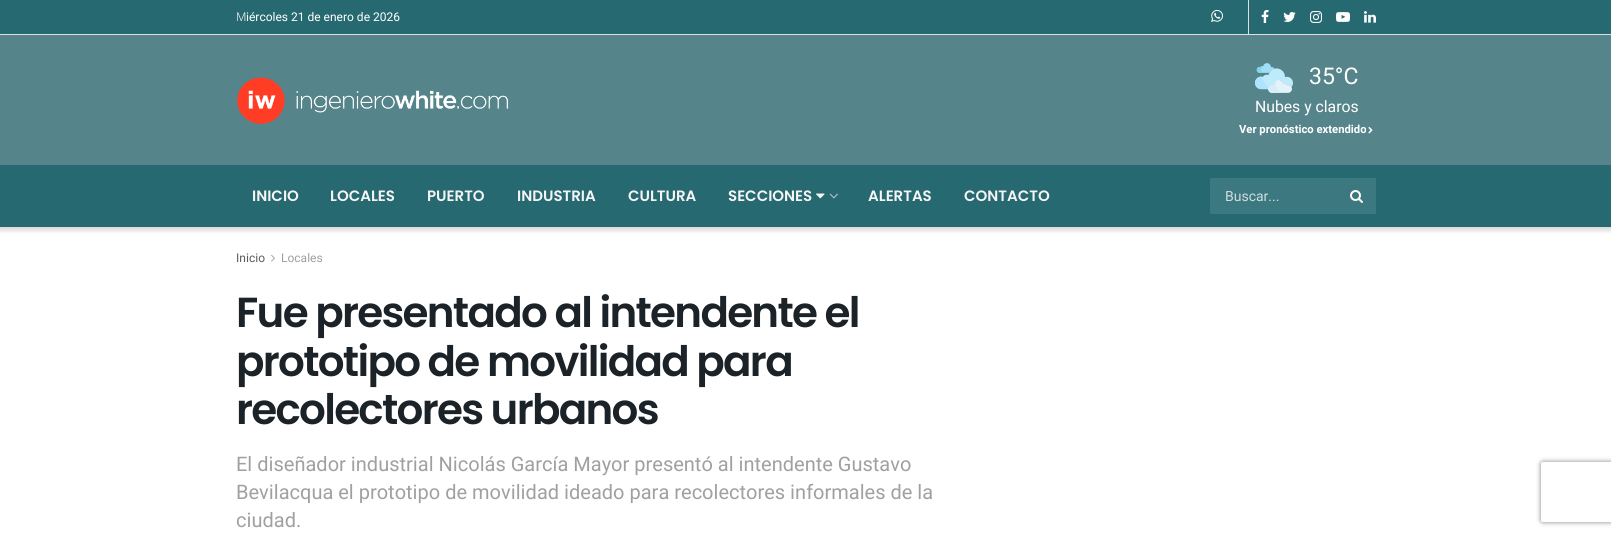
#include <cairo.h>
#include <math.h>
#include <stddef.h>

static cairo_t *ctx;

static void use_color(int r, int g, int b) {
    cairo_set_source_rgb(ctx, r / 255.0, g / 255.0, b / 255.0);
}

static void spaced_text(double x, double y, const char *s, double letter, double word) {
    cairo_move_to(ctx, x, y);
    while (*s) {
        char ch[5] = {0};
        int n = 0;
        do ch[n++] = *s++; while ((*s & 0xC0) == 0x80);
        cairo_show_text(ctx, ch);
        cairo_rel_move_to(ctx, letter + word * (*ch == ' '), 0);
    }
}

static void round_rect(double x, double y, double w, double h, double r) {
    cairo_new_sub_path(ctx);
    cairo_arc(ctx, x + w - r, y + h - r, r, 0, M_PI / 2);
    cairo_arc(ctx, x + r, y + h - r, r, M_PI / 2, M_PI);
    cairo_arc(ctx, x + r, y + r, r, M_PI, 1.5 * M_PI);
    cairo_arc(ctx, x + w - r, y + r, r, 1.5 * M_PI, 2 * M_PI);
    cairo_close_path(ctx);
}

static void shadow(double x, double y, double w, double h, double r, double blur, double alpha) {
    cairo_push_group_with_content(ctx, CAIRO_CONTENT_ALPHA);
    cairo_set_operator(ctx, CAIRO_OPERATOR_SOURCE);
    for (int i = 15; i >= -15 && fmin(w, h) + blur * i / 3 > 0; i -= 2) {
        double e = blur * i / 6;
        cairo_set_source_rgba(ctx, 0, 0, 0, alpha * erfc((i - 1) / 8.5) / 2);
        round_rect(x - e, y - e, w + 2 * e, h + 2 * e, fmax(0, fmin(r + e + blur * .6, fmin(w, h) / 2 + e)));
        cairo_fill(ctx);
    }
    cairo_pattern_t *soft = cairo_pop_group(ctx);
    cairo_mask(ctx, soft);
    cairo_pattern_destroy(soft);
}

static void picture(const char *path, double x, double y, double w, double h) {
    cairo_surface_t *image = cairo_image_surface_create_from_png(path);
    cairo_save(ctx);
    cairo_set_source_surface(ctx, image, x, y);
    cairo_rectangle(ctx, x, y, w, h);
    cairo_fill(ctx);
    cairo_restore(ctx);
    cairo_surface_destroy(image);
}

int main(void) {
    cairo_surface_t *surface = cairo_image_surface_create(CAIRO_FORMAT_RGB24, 1611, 536);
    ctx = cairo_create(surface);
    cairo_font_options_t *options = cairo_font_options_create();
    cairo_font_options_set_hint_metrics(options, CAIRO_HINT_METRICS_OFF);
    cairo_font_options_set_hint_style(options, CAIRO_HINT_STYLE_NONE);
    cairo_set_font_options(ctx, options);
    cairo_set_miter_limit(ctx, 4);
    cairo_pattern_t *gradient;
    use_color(255, 255, 255);
    cairo_paint(ctx);
    use_color(38, 105, 113);
    cairo_rectangle(ctx, 0, 0, 1611, 34);
    cairo_fill(ctx);
    use_color(224, 224, 224);
    cairo_rectangle(ctx, 0, 34, 1611, 1);
    cairo_fill(ctx);
    cairo_select_font_face(ctx, "Noto Sans Light", CAIRO_FONT_SLANT_NORMAL, CAIRO_FONT_WEIGHT_NORMAL);
    cairo_set_font_size(ctx, 12);
    use_color(255, 255, 255);
    cairo_move_to(ctx, 236, 21);
    cairo_show_text(ctx, "M");
    cairo_select_font_face(ctx, "Heebo", CAIRO_FONT_SLANT_NORMAL, CAIRO_FONT_WEIGHT_NORMAL);
    cairo_move_to(ctx, 246, 21);
    cairo_show_text(ctx, "iércoles 21 de enero de 2026");
    use_color(224, 224, 224);
    cairo_rectangle(ctx, 1248, 0, 1, 34);
    cairo_fill(ctx);
    picture("img1.png", 1211, 10, 12, 12);
    picture("img2.png", 1261, 10, 8, 13);
    picture("img3.png", 1283, 12, 13, 10);
    picture("img4.png", 1310, 11, 12, 12);
    picture("img5.png", 1336, 12, 14, 10);
    picture("img6.png", 1364, 11, 12, 12);
    use_color(85, 132, 138);
    cairo_rectangle(ctx, 0, 35, 1611, 130);
    cairo_fill(ctx);
    picture("img7.png", 237, 77, 272, 47);
    picture("img8.png", 1255, 63, 38, 30);
    cairo_set_font_size(ctx, 23);
    use_color(255, 255, 255);
    cairo_move_to(ctx, 1309, 84);
    cairo_show_text(ctx, "35°C");
    cairo_set_font_size(ctx, 15.75);
    cairo_move_to(ctx, 1255, 112);
    cairo_show_text(ctx, "Nubes y claros");
    cairo_select_font_face(ctx, "Heebo", CAIRO_FONT_SLANT_NORMAL, CAIRO_FONT_WEIGHT_BOLD);
    cairo_set_font_size(ctx, 11.25);
    cairo_move_to(ctx, 1239, 133);
    cairo_show_text(ctx, "Ver pronóstico extendido");
    picture("img9.png", 1368, 126, 5, 8);
    use_color(38, 105, 113);
    cairo_rectangle(ctx, 0, 165, 1611, 62);
    cairo_fill(ctx);
    cairo_select_font_face(ctx, "Poppins SemiBold", CAIRO_FONT_SLANT_NORMAL, CAIRO_FONT_WEIGHT_NORMAL);
    cairo_set_font_size(ctx, 15);
    use_color(245, 245, 245);
    cairo_move_to(ctx, 252, 201);
    cairo_show_text(ctx, "INICIO");
    cairo_move_to(ctx, 330, 201);
    cairo_show_text(ctx, "LOCALES");
    cairo_move_to(ctx, 427, 201);
    cairo_show_text(ctx, "PUERTO");
    cairo_move_to(ctx, 517, 201);
    cairo_show_text(ctx, "INDUSTRIA");
    cairo_move_to(ctx, 628, 201);
    cairo_show_text(ctx, "CULTURA");
    cairo_move_to(ctx, 728, 201);
    cairo_show_text(ctx, "SECCIONES");
    picture("img10.png", 816, 193, 9, 6);
    picture("img11.png", 829, 193, 9, 6);
    cairo_move_to(ctx, 868, 201);
    cairo_show_text(ctx, "ALERTAS");
    cairo_move_to(ctx, 964, 201);
    cairo_show_text(ctx, "CONTACTO");
    use_color(60, 120, 127);
    cairo_rectangle(ctx, 1210, 178, 166, 36);
    cairo_fill(ctx);
    cairo_select_font_face(ctx, "Heebo", CAIRO_FONT_SLANT_NORMAL, CAIRO_FONT_WEIGHT_NORMAL);
    cairo_set_font_size(ctx, 14);
    use_color(206, 221, 223);
    cairo_move_to(ctx, 1225, 201);
    cairo_show_text(ctx, "Buscar...");
    picture("img12.png", 1350, 190, 13, 13);
    gradient = cairo_pattern_create_linear(806, 227, 806, 234);
    cairo_pattern_add_color_stop_rgba(gradient, 0, 0.851, 0.851, 0.851, 1);
    cairo_pattern_add_color_stop_rgba(gradient, 1, 1, 1, 1, 1);
    cairo_set_source(ctx, gradient);
    cairo_pattern_destroy(gradient);
    cairo_rectangle(ctx, 0, 227, 1611, 7);
    cairo_fill(ctx);
    cairo_set_font_size(ctx, 12);
    use_color(89, 92, 95);
    cairo_move_to(ctx, 236, 262);
    cairo_show_text(ctx, "Inicio");
    picture("img13.png", 271, 254, 4, 8);
    use_color(160, 160, 160);
    cairo_move_to(ctx, 281, 262);
    cairo_show_text(ctx, "Locales");
    cairo_select_font_face(ctx, "Poppins SemiBold", CAIRO_FONT_SLANT_NORMAL, CAIRO_FONT_WEIGHT_NORMAL);
    cairo_set_font_size(ctx, 42);
    use_color(27, 34, 40);
    spaced_text(236, 327, "Fue presentado al intendente el", -1.7, 0);
    spaced_text(236, 376, "prototipo de movilidad para", -1.7, 0);
    spaced_text(236, 424, "recolectores urbanos", -1.7, 0);
    cairo_select_font_face(ctx, "Heebo", CAIRO_FONT_SLANT_NORMAL, CAIRO_FONT_WEIGHT_NORMAL);
    cairo_set_font_size(ctx, 20);
    use_color(160, 160, 160);
    cairo_move_to(ctx, 236, 471);
    cairo_show_text(ctx, "El diseñador industrial Nicolás García Mayor presentó al intendente Gustavo");
    cairo_move_to(ctx, 236, 499);
    cairo_show_text(ctx, "Bevilacqua el prototipo de movilidad ideado para recolectores informales de la");
    cairo_move_to(ctx, 236, 527);
    cairo_show_text(ctx, "ciudad.");
    cairo_save(ctx);
    cairo_set_fill_rule(ctx, CAIRO_FILL_RULE_EVEN_ODD);
    cairo_new_path(ctx);
    cairo_move_to(ctx, 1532, 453);
    cairo_line_to(ctx, 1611, 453);
    cairo_line_to(ctx, 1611, 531);
    cairo_line_to(ctx, 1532, 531);
    cairo_close_path(ctx);
    cairo_move_to(ctx, 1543, 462);
    cairo_line_to(ctx, 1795, 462);
    cairo_curve_to(ctx, 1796, 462, 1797, 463, 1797, 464);
    cairo_line_to(ctx, 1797, 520);
    cairo_curve_to(ctx, 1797, 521, 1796, 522, 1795, 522);
    cairo_line_to(ctx, 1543, 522);
    cairo_curve_to(ctx, 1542, 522, 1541, 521, 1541, 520);
    cairo_line_to(ctx, 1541, 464);
    cairo_curve_to(ctx, 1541, 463, 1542, 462, 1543, 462);
    cairo_close_path(ctx);
    cairo_clip(ctx);
    use_color(128, 128, 128);
    shadow(1541, 462, 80, 60, 2, 2.5, 1);
    cairo_restore(ctx);
    cairo_surface_write_to_png(surface, "result.png");
    cairo_font_options_destroy(options);
    cairo_destroy(ctx);
    cairo_surface_destroy(surface);
    return 0;
}
